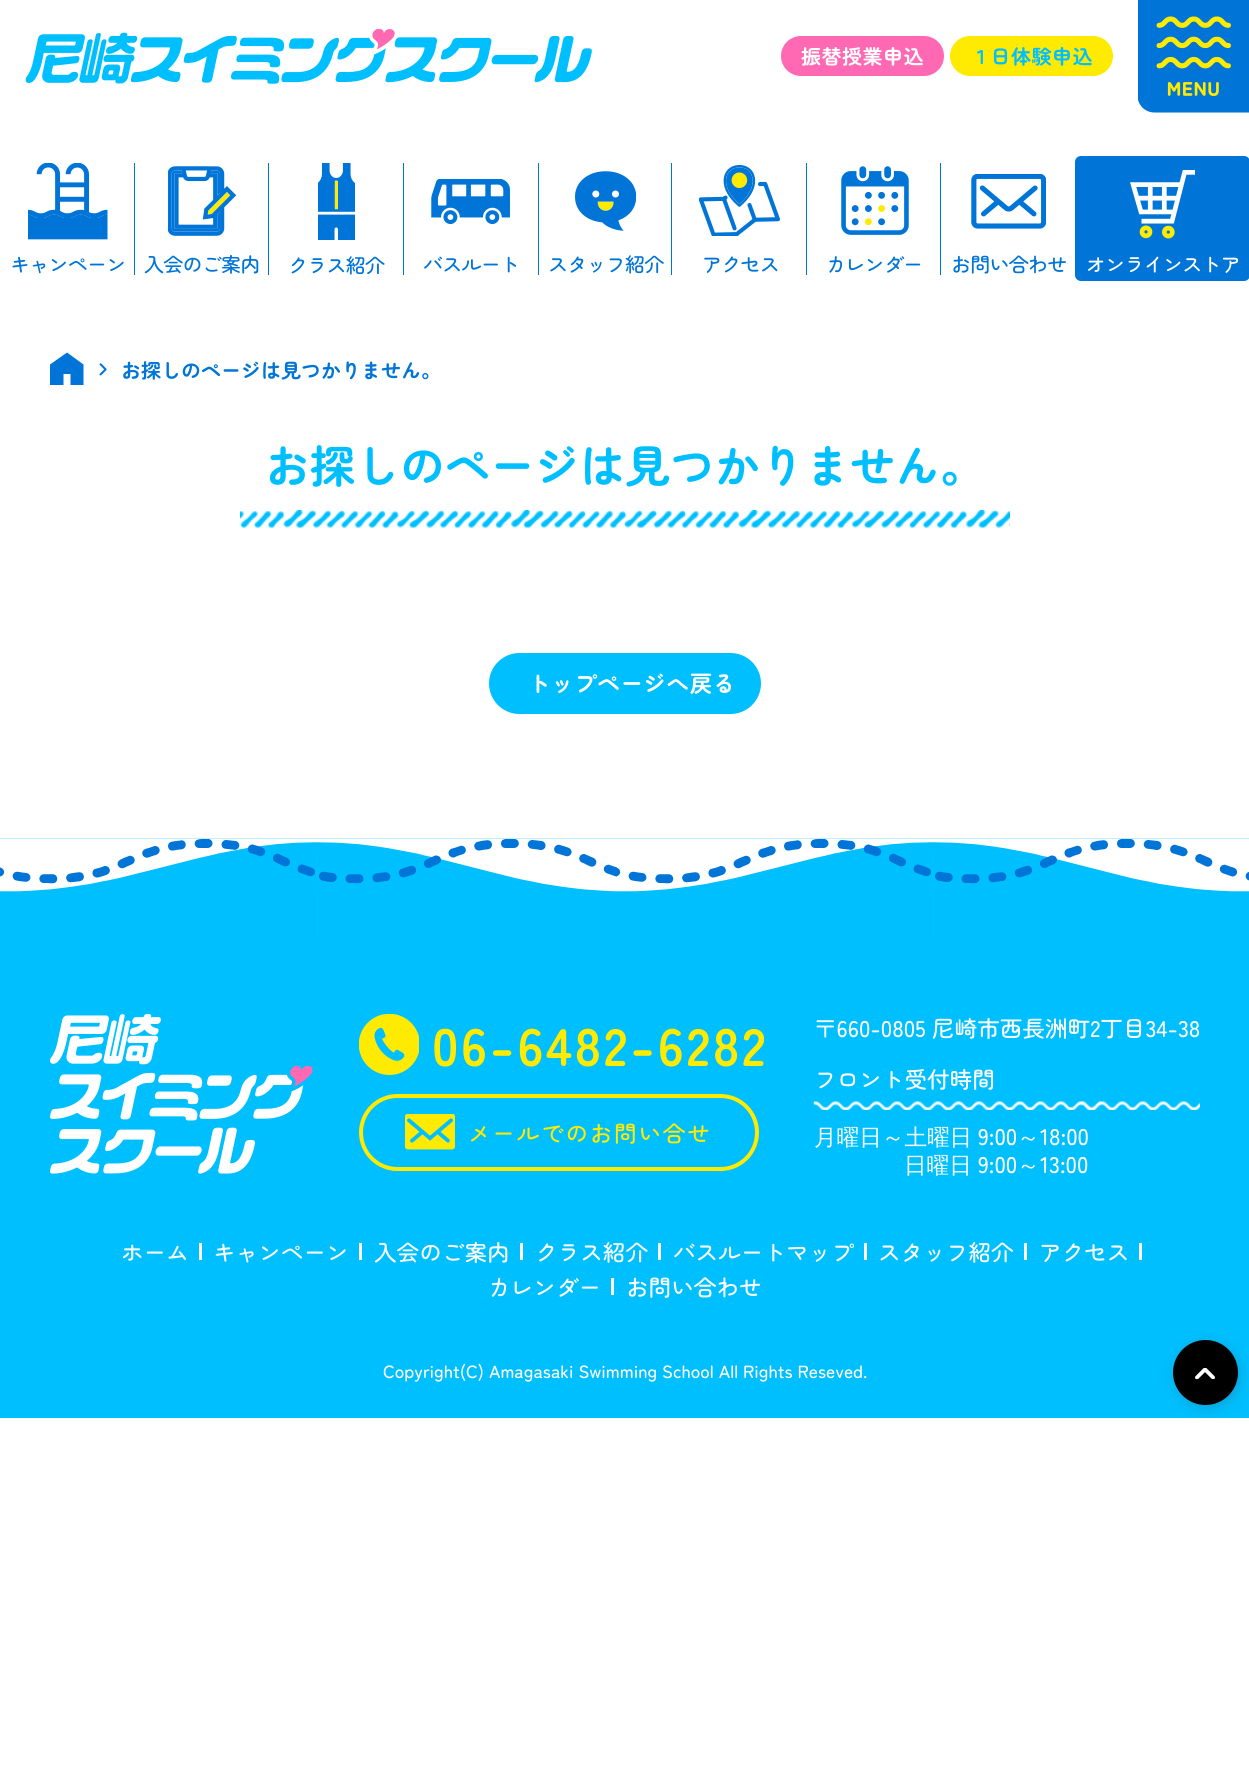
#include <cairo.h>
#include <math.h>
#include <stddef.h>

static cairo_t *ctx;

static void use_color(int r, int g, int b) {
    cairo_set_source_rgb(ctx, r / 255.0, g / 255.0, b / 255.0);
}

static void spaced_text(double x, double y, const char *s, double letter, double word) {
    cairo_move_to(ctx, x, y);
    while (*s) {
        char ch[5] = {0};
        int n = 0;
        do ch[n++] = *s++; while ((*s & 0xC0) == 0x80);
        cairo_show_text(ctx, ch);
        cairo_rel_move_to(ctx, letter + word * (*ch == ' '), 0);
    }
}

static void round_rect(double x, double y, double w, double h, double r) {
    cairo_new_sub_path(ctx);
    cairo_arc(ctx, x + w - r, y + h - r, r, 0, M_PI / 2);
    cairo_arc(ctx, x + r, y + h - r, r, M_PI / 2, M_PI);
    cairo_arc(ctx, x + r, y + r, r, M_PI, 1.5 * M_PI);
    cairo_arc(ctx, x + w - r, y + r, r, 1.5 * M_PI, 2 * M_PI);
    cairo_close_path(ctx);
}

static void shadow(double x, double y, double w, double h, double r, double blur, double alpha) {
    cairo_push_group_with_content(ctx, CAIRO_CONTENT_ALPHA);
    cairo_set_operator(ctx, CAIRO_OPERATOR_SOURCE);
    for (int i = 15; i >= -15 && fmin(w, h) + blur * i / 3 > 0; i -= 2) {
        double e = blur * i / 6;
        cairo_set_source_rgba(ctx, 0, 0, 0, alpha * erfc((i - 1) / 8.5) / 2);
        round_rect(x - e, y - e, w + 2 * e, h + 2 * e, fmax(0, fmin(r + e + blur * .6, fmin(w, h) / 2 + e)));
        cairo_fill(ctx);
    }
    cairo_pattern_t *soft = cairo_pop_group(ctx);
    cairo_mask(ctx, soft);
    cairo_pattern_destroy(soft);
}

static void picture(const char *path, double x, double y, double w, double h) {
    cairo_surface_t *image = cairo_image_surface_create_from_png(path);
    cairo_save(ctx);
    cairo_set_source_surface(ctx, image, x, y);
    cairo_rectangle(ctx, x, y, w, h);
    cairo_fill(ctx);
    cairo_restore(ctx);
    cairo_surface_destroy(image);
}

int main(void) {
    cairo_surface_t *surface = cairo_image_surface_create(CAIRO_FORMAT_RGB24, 1249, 1773);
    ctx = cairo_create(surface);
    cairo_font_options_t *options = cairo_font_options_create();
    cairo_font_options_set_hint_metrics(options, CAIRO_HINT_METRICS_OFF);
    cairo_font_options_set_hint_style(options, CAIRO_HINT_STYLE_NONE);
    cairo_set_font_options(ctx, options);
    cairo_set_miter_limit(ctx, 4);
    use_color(255, 255, 255);
    cairo_paint(ctx);
    picture("img1.png", 1138, 0, 111, 113);
    picture("img2.png", 25, 29, 567, 55);
    use_color(255, 105, 180);
    round_rect(782.5, 37.5, 160, 37, 18.5);
    cairo_fill_preserve(ctx);
    cairo_set_line_width(ctx, 3);
    cairo_stroke(ctx);
    cairo_select_font_face(ctx, "Zen Maru Gothic", CAIRO_FONT_SLANT_NORMAL, CAIRO_FONT_WEIGHT_BOLD);
    cairo_set_font_size(ctx, 20);
    use_color(255, 255, 255);
    spaced_text(801, 64, "振替授業申込", 0.5, 0);
    use_color(255, 234, 1);
    round_rect(951.5, 37.5, 160, 37, 18.5);
    cairo_fill_preserve(ctx);
    cairo_stroke(ctx);
    use_color(0, 191, 255);
    spaced_text(970, 64, "１日体験申込", 0.5, 0);
    picture("img3.png", 28, 163, 80, 77);
    cairo_select_font_face(ctx, "Zen Maru Gothic Medium", CAIRO_FONT_SLANT_NORMAL, CAIRO_FONT_WEIGHT_NORMAL);
    use_color(0, 117, 215);
    spaced_text(10, 272, "キャンペーン", -0.75, 0);
    cairo_rectangle(ctx, 134, 163, 1, 112);
    cairo_fill(ctx);
    picture("img4.png", 168, 166, 68, 70);
    spaced_text(144, 272, "入会のご案内", -0.75, 0);
    cairo_rectangle(ctx, 268, 163, 1, 112);
    cairo_fill(ctx);
    picture("img5.png", 318, 163, 37, 77);
    spaced_text(288, 273, "クラス紹介", -0.75, 0);
    cairo_rectangle(ctx, 403, 163, 1, 112);
    cairo_fill(ctx);
    picture("img6.png", 431, 179, 79, 45);
    spaced_text(423, 272, "バスルート", -0.75, 0);
    cairo_rectangle(ctx, 538, 163, 1, 112);
    cairo_fill(ctx);
    picture("img7.png", 575, 171, 61, 60);
    spaced_text(548, 272, "スタッフ紹介", -0.75, 0);
    cairo_rectangle(ctx, 671, 163, 1, 112);
    cairo_fill(ctx);
    picture("img8.png", 699, 165, 81, 71);
    spaced_text(702, 272, "アクセス", -0.75, 0);
    cairo_rectangle(ctx, 806, 163, 1, 112);
    cairo_fill(ctx);
    picture("img9.png", 841, 166, 68, 69);
    spaced_text(826, 272, "カレンダー", -0.75, 0);
    cairo_rectangle(ctx, 940, 163, 1, 112);
    cairo_fill(ctx);
    picture("img10.png", 971, 174, 75, 55);
    spaced_text(951, 272, "お問い合わせ", -0.75, 0);
    round_rect(1075, 156, 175, 125, 6);
    cairo_fill(ctx);
    picture("img11.png", 1130, 170, 65, 69);
    use_color(255, 255, 255);
    spaced_text(1086, 272, "オンラインストア", -0.75, 0);
    use_color(0, 117, 215);
    cairo_new_path(ctx);
    cairo_move_to(ctx, 67, 352.5);
    cairo_line_to(ctx, 50, 364.5);
    cairo_line_to(ctx, 50, 385);
    cairo_line_to(ctx, 63.5, 385);
    cairo_line_to(ctx, 63.5, 374);
    cairo_line_to(ctx, 70.5, 374);
    cairo_line_to(ctx, 70.5, 385);
    cairo_line_to(ctx, 83.5, 385);
    cairo_line_to(ctx, 83.5, 364.5);
    cairo_close_path(ctx);
    cairo_fill(ctx);
    picture("img12.png", 99, 363, 8, 13);
    cairo_select_font_face(ctx, "Zen Maru Gothic", CAIRO_FONT_SLANT_NORMAL, CAIRO_FONT_WEIGHT_BOLD);
    cairo_move_to(ctx, 121, 378);
    cairo_show_text(ctx, "お探しのページは見つかりません。");
    cairo_set_font_size(ctx, 45);
    use_color(0, 191, 255);
    cairo_move_to(ctx, 265, 483);
    cairo_show_text(ctx, "お探しのページは見つかりません。");
    picture("img13.png", 240, 510, 770, 18);
    round_rect(491, 655, 268, 57, 28.5);
    cairo_fill_preserve(ctx);
    cairo_set_line_width(ctx, 4);
    cairo_stroke(ctx);
    cairo_set_font_size(ctx, 22.6);
    use_color(255, 255, 255);
    spaced_text(528, 692, "トップページへ戻る", 0.5, 0);
    picture("img14.png", 0, 838, 1249, 98);
    use_color(0, 191, 255);
    cairo_rectangle(ctx, 0, 936, 1249, 482);
    cairo_fill(ctx);
    picture("img15.png", 50, 1014, 263, 160);
    picture("img16.png", 359, 1014, 60, 61);
    cairo_set_font_size(ctx, 52.5);
    use_color(255, 234, 1);
    spaced_text(432, 1066, "06-6482-6282", 2.6, 0);
    round_rect(361, 1096, 396, 73, 36.5);
    cairo_stroke(ctx);
    picture("img17.png", 405, 1114, 50, 36);
    cairo_select_font_face(ctx, "Zen Maru Gothic Medium", CAIRO_FONT_SLANT_NORMAL, CAIRO_FONT_WEIGHT_NORMAL);
    cairo_set_font_size(ctx, 22.6);
    spaced_text(468, 1142, "メールでのお問い合せ", 1.75, 0);
    use_color(255, 255, 255);
    cairo_move_to(ctx, 814, 1037);
    cairo_show_text(ctx, "〒660-0805 尼崎市西長洲町2丁目34-38");
    picture("img18.png", 813, 1101, 387, 9);
    cairo_move_to(ctx, 814, 1088);
    cairo_show_text(ctx, "フロント受付時間");
    cairo_select_font_face(ctx, "WenQuanYi Zen Hei Medium", CAIRO_FONT_SLANT_NORMAL, CAIRO_FONT_WEIGHT_NORMAL);
    cairo_move_to(ctx, 814, 1145);
    cairo_show_text(ctx, "月曜日～土曜日");
    cairo_select_font_face(ctx, "Zen Maru Gothic Medium", CAIRO_FONT_SLANT_NORMAL, CAIRO_FONT_WEIGHT_NORMAL);
    cairo_move_to(ctx, 978, 1145);
    cairo_show_text(ctx, "9:00");
    cairo_select_font_face(ctx, "WenQuanYi Zen Hei Medium", CAIRO_FONT_SLANT_NORMAL, CAIRO_FONT_WEIGHT_NORMAL);
    cairo_move_to(ctx, 1017, 1145);
    cairo_show_text(ctx, "～");
    cairo_select_font_face(ctx, "Zen Maru Gothic Medium", CAIRO_FONT_SLANT_NORMAL, CAIRO_FONT_WEIGHT_NORMAL);
    cairo_move_to(ctx, 1040, 1145);
    cairo_show_text(ctx, "18:00");
    cairo_select_font_face(ctx, "WenQuanYi Zen Hei Medium", CAIRO_FONT_SLANT_NORMAL, CAIRO_FONT_WEIGHT_NORMAL);
    cairo_move_to(ctx, 904, 1173);
    cairo_show_text(ctx, "日曜日");
    cairo_select_font_face(ctx, "Zen Maru Gothic Medium", CAIRO_FONT_SLANT_NORMAL, CAIRO_FONT_WEIGHT_NORMAL);
    cairo_move_to(ctx, 978, 1173);
    cairo_show_text(ctx, "9:00");
    cairo_select_font_face(ctx, "WenQuanYi Zen Hei Medium", CAIRO_FONT_SLANT_NORMAL, CAIRO_FONT_WEIGHT_NORMAL);
    cairo_move_to(ctx, 1017, 1173);
    cairo_show_text(ctx, "～");
    cairo_select_font_face(ctx, "Zen Maru Gothic Medium", CAIRO_FONT_SLANT_NORMAL, CAIRO_FONT_WEIGHT_NORMAL);
    cairo_move_to(ctx, 1040, 1173);
    cairo_show_text(ctx, "13:00");
    cairo_move_to(ctx, 121, 1261);
    cairo_show_text(ctx, "ホーム");
    cairo_rectangle(ctx, 199, 1243, 3, 17);
    cairo_fill(ctx);
    cairo_move_to(ctx, 213, 1261);
    cairo_show_text(ctx, "キャンペーン");
    cairo_rectangle(ctx, 359, 1243, 3, 17);
    cairo_fill(ctx);
    cairo_move_to(ctx, 374, 1261);
    cairo_show_text(ctx, "入会のご案内");
    cairo_rectangle(ctx, 520, 1243, 3, 17);
    cairo_fill(ctx);
    cairo_move_to(ctx, 535, 1261);
    cairo_show_text(ctx, "クラス紹介");
    cairo_rectangle(ctx, 658, 1243, 3, 17);
    cairo_fill(ctx);
    cairo_move_to(ctx, 673, 1261);
    cairo_show_text(ctx, "バスルートマップ");
    cairo_rectangle(ctx, 864, 1243, 3, 17);
    cairo_fill(ctx);
    cairo_move_to(ctx, 878, 1261);
    cairo_show_text(ctx, "スタッフ紹介");
    cairo_rectangle(ctx, 1024, 1243, 3, 17);
    cairo_fill(ctx);
    cairo_move_to(ctx, 1039, 1261);
    cairo_show_text(ctx, "アクセス");
    cairo_rectangle(ctx, 1139, 1243, 3, 17);
    cairo_fill(ctx);
    cairo_move_to(ctx, 488, 1296);
    cairo_show_text(ctx, "カレンダー");
    cairo_rectangle(ctx, 611, 1278, 3, 17);
    cairo_fill(ctx);
    cairo_move_to(ctx, 626, 1296);
    cairo_show_text(ctx, "お問い合わせ");
    cairo_set_font_size(ctx, 17.6);
    cairo_move_to(ctx, 383, 1378);
    cairo_show_text(ctx, "Copyright(C) Amagasaki Swimming School All Rights Reseved.");
    use_color(40, 49, 53);
    shadow(1175, 1343, 65, 65, 32.5, 6, 0.2);
    use_color(0, 0, 0);
    cairo_arc(ctx, 1205.5, 1372.5, 32.5, 0, 2 * M_PI);
    cairo_fill(ctx);
    picture("img19.png", 1195, 1368, 20, 11);
    cairo_surface_write_to_png(surface, "result.png");
    cairo_font_options_destroy(options);
    cairo_destroy(ctx);
    cairo_surface_destroy(surface);
    return 0;
}
